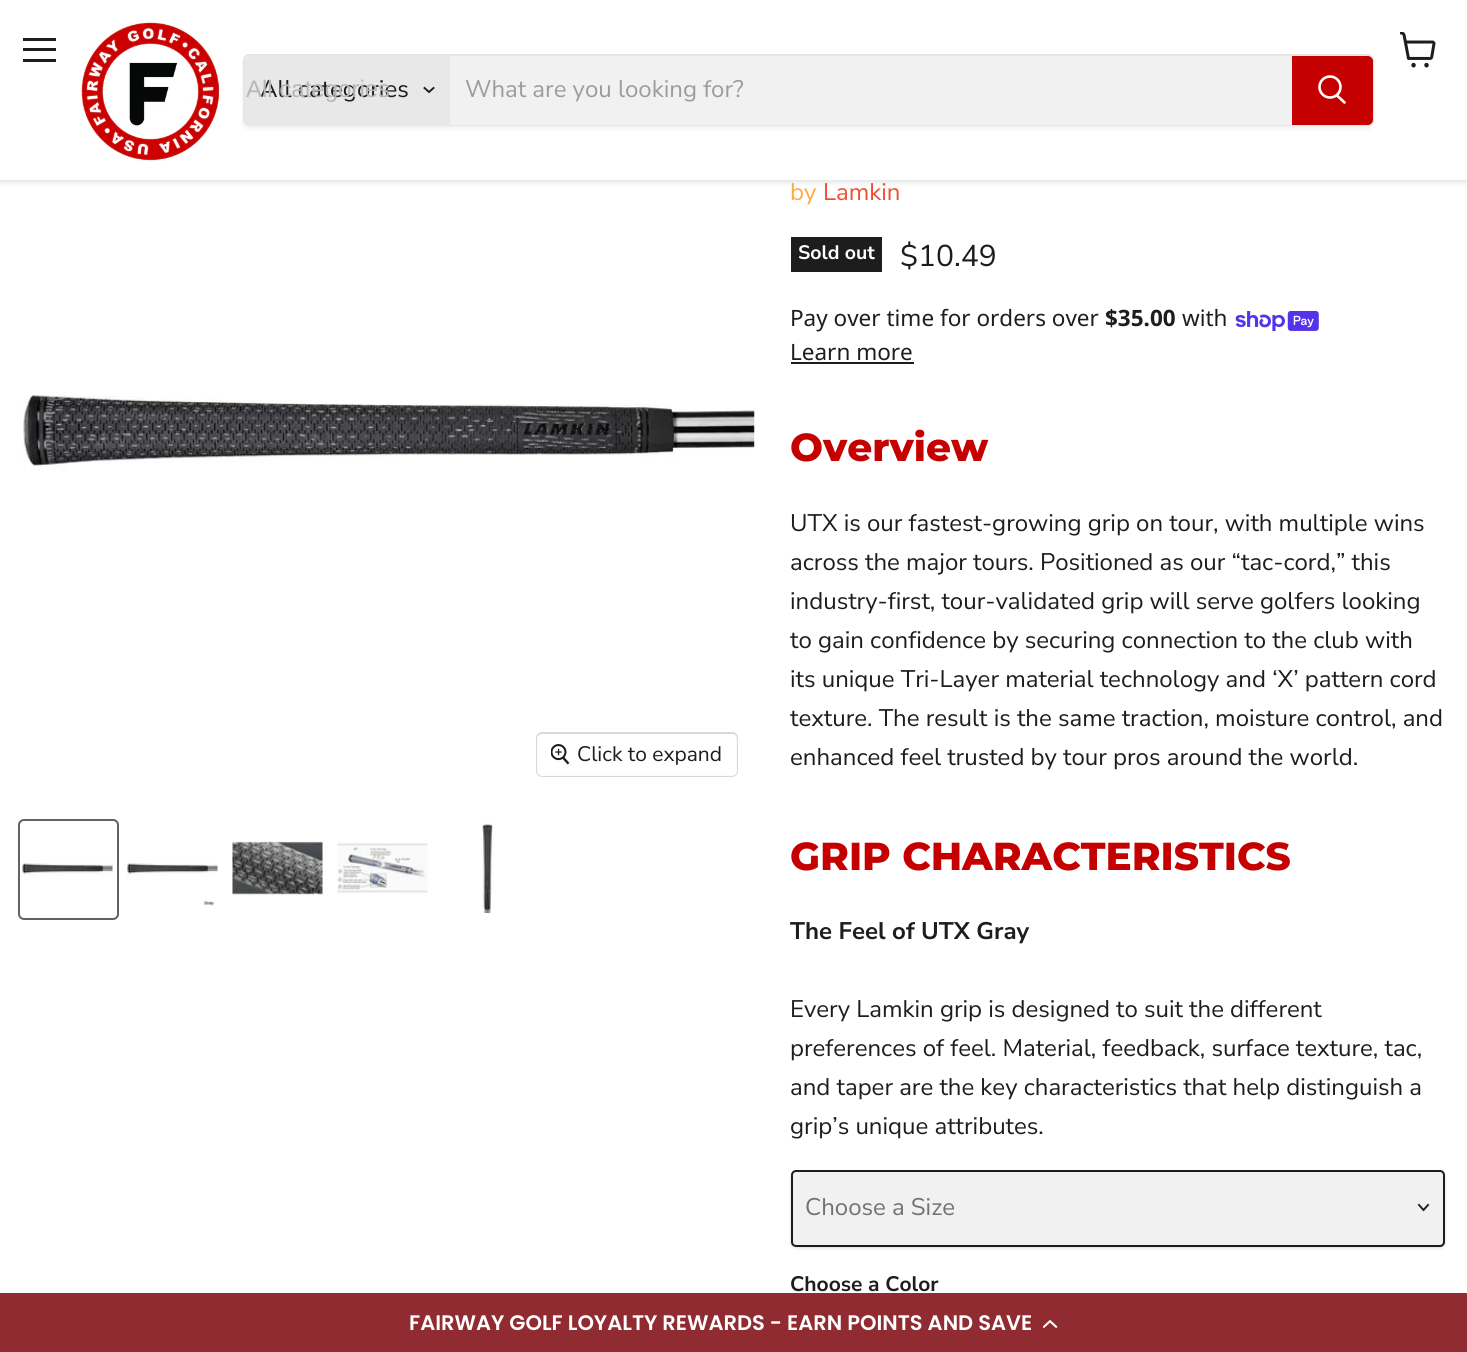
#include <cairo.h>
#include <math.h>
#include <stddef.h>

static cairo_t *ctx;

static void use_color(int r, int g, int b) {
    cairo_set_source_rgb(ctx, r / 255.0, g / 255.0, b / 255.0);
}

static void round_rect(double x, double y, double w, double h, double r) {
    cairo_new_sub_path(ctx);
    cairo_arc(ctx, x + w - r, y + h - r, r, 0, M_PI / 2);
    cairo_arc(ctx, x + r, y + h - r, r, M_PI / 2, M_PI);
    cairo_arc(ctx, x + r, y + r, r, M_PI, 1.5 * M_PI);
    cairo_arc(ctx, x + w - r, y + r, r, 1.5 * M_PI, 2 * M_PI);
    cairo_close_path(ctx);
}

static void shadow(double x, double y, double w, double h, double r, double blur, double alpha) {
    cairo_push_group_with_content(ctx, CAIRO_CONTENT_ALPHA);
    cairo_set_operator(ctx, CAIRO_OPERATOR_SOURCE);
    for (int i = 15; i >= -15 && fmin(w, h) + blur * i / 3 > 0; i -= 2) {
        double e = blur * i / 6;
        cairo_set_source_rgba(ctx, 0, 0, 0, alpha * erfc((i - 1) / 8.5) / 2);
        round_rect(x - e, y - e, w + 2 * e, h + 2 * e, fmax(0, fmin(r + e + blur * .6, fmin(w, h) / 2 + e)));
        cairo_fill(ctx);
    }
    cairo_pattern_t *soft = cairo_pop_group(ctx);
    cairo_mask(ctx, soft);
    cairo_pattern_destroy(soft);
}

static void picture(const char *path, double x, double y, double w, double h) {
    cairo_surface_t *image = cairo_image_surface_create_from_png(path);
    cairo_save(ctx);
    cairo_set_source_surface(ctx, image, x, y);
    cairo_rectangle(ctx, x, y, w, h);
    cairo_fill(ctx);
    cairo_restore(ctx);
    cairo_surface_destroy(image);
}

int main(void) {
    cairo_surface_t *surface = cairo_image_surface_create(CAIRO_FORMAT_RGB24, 1467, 1352);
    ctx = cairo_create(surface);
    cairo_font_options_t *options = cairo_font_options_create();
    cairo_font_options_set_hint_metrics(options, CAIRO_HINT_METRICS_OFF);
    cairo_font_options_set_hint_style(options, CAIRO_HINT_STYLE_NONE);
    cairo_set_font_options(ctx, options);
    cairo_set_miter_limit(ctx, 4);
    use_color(255, 255, 255);
    cairo_paint(ctx);
    use_color(128, 128, 128);
    shadow(0, 2, 1467, 180, 0, 3, 0.25);
    use_color(255, 255, 255);
    cairo_rectangle(ctx, 0, 0, 1467, 180);
    cairo_fill(ctx);
    use_color(29, 29, 29);
    cairo_rectangle(ctx, 23, 38, 33, 3);
    cairo_fill(ctx);
    cairo_rectangle(ctx, 23, 48, 33, 3);
    cairo_fill(ctx);
    cairo_rectangle(ctx, 23, 59, 33, 3);
    cairo_fill(ctx);
    picture("img1.png", 1400, 32, 36, 36);
    picture("img2.png", 79, 19, 142, 144);
    cairo_save(ctx);
    cairo_set_fill_rule(ctx, CAIRO_FILL_RULE_EVEN_ODD);
    cairo_new_path(ctx);
    cairo_move_to(ctx, 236, 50);
    cairo_line_to(ctx, 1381, 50);
    cairo_line_to(ctx, 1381, 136);
    cairo_line_to(ctx, 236, 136);
    cairo_close_path(ctx);
    cairo_move_to(ctx, 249, 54);
    cairo_line_to(ctx, 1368, 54);
    cairo_curve_to(ctx, 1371.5, 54, 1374, 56.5, 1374, 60);
    cairo_line_to(ctx, 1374, 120);
    cairo_curve_to(ctx, 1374, 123.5, 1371.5, 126, 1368, 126);
    cairo_line_to(ctx, 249, 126);
    cairo_curve_to(ctx, 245.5, 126, 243, 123.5, 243, 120);
    cairo_line_to(ctx, 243, 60);
    cairo_curve_to(ctx, 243, 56.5, 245.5, 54, 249, 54);
    cairo_close_path(ctx);
    cairo_clip(ctx);
    use_color(128, 128, 128);
    shadow(243, 57, 1131, 72, 6, 2, 0.11);
    cairo_restore(ctx);
    round_rect(244, 55, 1129, 70, 5);
    cairo_set_source_rgba(ctx, 0.502, 0.502, 0.502, 0.2);
    cairo_stroke(ctx);
    use_color(232, 232, 232);
    cairo_new_path(ctx);
    cairo_move_to(ctx, 250, 56);
    cairo_line_to(ctx, 450, 56);
    cairo_line_to(ctx, 450, 125);
    cairo_line_to(ctx, 250, 125);
    cairo_curve_to(ctx, 247, 125, 245, 123, 245, 120);
    cairo_line_to(ctx, 245, 61);
    cairo_curve_to(ctx, 245, 58, 247, 56, 250, 56);
    cairo_close_path(ctx);
    cairo_fill(ctx);
    cairo_select_font_face(ctx, "Nunito Sans", CAIRO_FONT_SLANT_NORMAL, CAIRO_FONT_WEIGHT_NORMAL);
    cairo_set_font_size(ctx, 24);
    use_color(29, 29, 29);
    cairo_move_to(ctx, 260, 97);
    cairo_show_text(ctx, "All categories");
    cairo_select_font_face(ctx, "Liberation Sans", CAIRO_FONT_SLANT_NORMAL, CAIRO_FONT_WEIGHT_NORMAL);
    use_color(183, 183, 183);
    cairo_move_to(ctx, 246, 97);
    cairo_show_text(ctx, "All categories");
    cairo_new_path(ctx);
    cairo_move_to(ctx, 429, 92);
    cairo_line_to(ctx, 433.5, 88);
    cairo_move_to(ctx, 429, 92);
    cairo_line_to(ctx, 424.5, 88);
    use_color(29, 29, 29);
    cairo_set_line_width(ctx, 1.9);
    cairo_set_line_cap(ctx, CAIRO_LINE_CAP_SQUARE);
    cairo_stroke(ctx);
    use_color(241, 241, 241);
    cairo_rectangle(ctx, 450, 56, 842, 69);
    cairo_fill(ctx);
    cairo_select_font_face(ctx, "Nunito Sans", CAIRO_FONT_SLANT_NORMAL, CAIRO_FONT_WEIGHT_NORMAL);
    use_color(156, 156, 156);
    cairo_move_to(ctx, 465, 97);
    cairo_show_text(ctx, "What are you looking for?");
    use_color(197, 0, 0);
    cairo_new_path(ctx);
    cairo_move_to(ctx, 1293, 57);
    cairo_line_to(ctx, 1368, 57);
    cairo_curve_to(ctx, 1370, 57, 1372, 59, 1372, 61);
    cairo_line_to(ctx, 1372, 120);
    cairo_curve_to(ctx, 1372, 122, 1370, 124, 1368, 124);
    cairo_line_to(ctx, 1293, 124);
    cairo_close_path(ctx);
    cairo_fill_preserve(ctx);
    cairo_set_line_width(ctx, 2);
    cairo_set_line_cap(ctx, CAIRO_LINE_CAP_BUTT);
    cairo_stroke(ctx);
    cairo_new_path(ctx);
    cairo_move_to(ctx, 1344.5, 102.5);
    cairo_line_to(ctx, 1337, 95.5);
    use_color(255, 255, 255);
    cairo_set_line_width(ctx, 2.6);
    cairo_set_line_cap(ctx, CAIRO_LINE_CAP_ROUND);
    cairo_stroke(ctx);
    cairo_arc(ctx, 1330, 87, 10.5, 0, 2 * M_PI);
    cairo_set_line_cap(ctx, CAIRO_LINE_CAP_BUTT);
    cairo_stroke(ctx);
    picture("img3.png", 23, 395, 732, 76);
    round_rect(537, 733, 200, 43, 5);
    use_color(217, 217, 217);
    cairo_set_line_width(ctx, 2);
    cairo_stroke(ctx);
    cairo_set_source_rgba(ctx, 1, 1, 1, 0.9);
    round_rect(537, 734, 200, 42, 5);
    cairo_fill(ctx);
    picture("img4.png", 551, 744, 19, 21);
    cairo_set_font_size(ctx, 21);
    use_color(29, 29, 29);
    cairo_move_to(ctx, 577, 761);
    cairo_show_text(ctx, "Click to expand");
    round_rect(19, 820, 99, 99, 5);
    use_color(98, 98, 98);
    cairo_stroke(ctx);
    picture("img5.png", 22, 863, 91, 13);
    picture("img6.png", 127, 863, 91, 43);
    picture("img7.png", 232, 841, 91, 55);
    picture("img8.png", 337, 843, 91, 50);
    picture("img9.png", 481, 823, 13, 90);
    cairo_set_font_size(ctx, 24);
    use_color(255, 171, 65);
    cairo_move_to(ctx, 790, 200);
    cairo_show_text(ctx, "by");
    use_color(240, 79, 54);
    cairo_move_to(ctx, 823, 200);
    cairo_show_text(ctx, "Lamkin");
    use_color(29, 29, 29);
    cairo_rectangle(ctx, 791, 237, 91, 35);
    cairo_fill(ctx);
    cairo_select_font_face(ctx, "Nunito Sans", CAIRO_FONT_SLANT_NORMAL, CAIRO_FONT_WEIGHT_BOLD);
    cairo_set_font_size(ctx, 19.5);
    use_color(255, 255, 255);
    cairo_move_to(ctx, 798, 259);
    cairo_show_text(ctx, "Sold out");
    cairo_select_font_face(ctx, "Nunito Sans", CAIRO_FONT_SLANT_NORMAL, CAIRO_FONT_WEIGHT_NORMAL);
    cairo_set_font_size(ctx, 30);
    use_color(29, 29, 29);
    cairo_move_to(ctx, 900, 266);
    cairo_show_text(ctx, "$10.49");
    cairo_select_font_face(ctx, "Noto Sans", CAIRO_FONT_SLANT_NORMAL, CAIRO_FONT_WEIGHT_NORMAL);
    cairo_set_font_size(ctx, 22.5);
    cairo_move_to(ctx, 790, 326);
    cairo_show_text(ctx, "Pay over time for orders over");
    cairo_select_font_face(ctx, "Noto Sans", CAIRO_FONT_SLANT_NORMAL, CAIRO_FONT_WEIGHT_BOLD);
    cairo_move_to(ctx, 1105, 326);
    cairo_show_text(ctx, "$35.00");
    cairo_select_font_face(ctx, "Noto Sans", CAIRO_FONT_SLANT_NORMAL, CAIRO_FONT_WEIGHT_NORMAL);
    cairo_move_to(ctx, 1182, 326);
    cairo_show_text(ctx, "with");
    picture("img10.png", 1235, 311, 84, 21);
    cairo_move_to(ctx, 790, 360);
    cairo_show_text(ctx, "Learn more");
    cairo_rectangle(ctx, 791, 362, 123, 2);
    cairo_fill(ctx);
    cairo_select_font_face(ctx, "Montserrat ExtraBold", CAIRO_FONT_SLANT_NORMAL, CAIRO_FONT_WEIGHT_NORMAL);
    cairo_set_font_size(ctx, 39);
    use_color(197, 0, 0);
    cairo_move_to(ctx, 790, 461);
    cairo_show_text(ctx, "Overview");
    cairo_select_font_face(ctx, "Nunito Sans", CAIRO_FONT_SLANT_NORMAL, CAIRO_FONT_WEIGHT_NORMAL);
    cairo_set_font_size(ctx, 24);
    use_color(29, 29, 29);
    cairo_move_to(ctx, 790, 531);
    cairo_show_text(ctx, "UTX is our fastest-growing grip on tour, with multiple wins");
    cairo_move_to(ctx, 790, 570);
    cairo_show_text(ctx, "across the major tours. Positioned as our “tac-cord,” this");
    cairo_move_to(ctx, 790, 609);
    cairo_show_text(ctx, "industry-first, tour-validated grip will serve golfers looking");
    cairo_move_to(ctx, 790, 648);
    cairo_show_text(ctx, "to gain confidence by securing connection to the club with");
    cairo_move_to(ctx, 790, 687);
    cairo_show_text(ctx, "its unique Tri-Layer material technology and ‘X’ pattern cord");
    cairo_move_to(ctx, 790, 726);
    cairo_show_text(ctx, "texture. The result is the same traction, moisture control, and");
    cairo_move_to(ctx, 790, 765);
    cairo_show_text(ctx, "enhanced feel trusted by tour pros around the world.");
    cairo_select_font_face(ctx, "Montserrat ExtraBold", CAIRO_FONT_SLANT_NORMAL, CAIRO_FONT_WEIGHT_NORMAL);
    cairo_set_font_size(ctx, 39);
    use_color(197, 0, 0);
    cairo_move_to(ctx, 790, 870);
    cairo_show_text(ctx, "GRIP CHARACTERISTICS");
    cairo_select_font_face(ctx, "Nunito Sans", CAIRO_FONT_SLANT_NORMAL, CAIRO_FONT_WEIGHT_BOLD);
    cairo_set_font_size(ctx, 24);
    use_color(29, 29, 29);
    cairo_move_to(ctx, 790, 939);
    cairo_show_text(ctx, "The Feel of UTX Gray");
    cairo_select_font_face(ctx, "Nunito Sans", CAIRO_FONT_SLANT_NORMAL, CAIRO_FONT_WEIGHT_NORMAL);
    cairo_move_to(ctx, 790, 1017);
    cairo_show_text(ctx, "Every Lamkin grip is designed to suit the different");
    cairo_move_to(ctx, 790, 1056);
    cairo_show_text(ctx, "preferences of feel. Material, feedback, surface texture, tac,");
    cairo_move_to(ctx, 790, 1095);
    cairo_show_text(ctx, "and taper are the key characteristics that help distinguish a");
    cairo_move_to(ctx, 790, 1134);
    cairo_show_text(ctx, "grip’s unique attributes.");
    use_color(0, 0, 0);
    shadow(791, 1172, 654, 76, 5, 1.5, 0.15);
    use_color(241, 241, 241);
    round_rect(792, 1171, 652, 75, 4);
    cairo_fill_preserve(ctx);
    use_color(29, 29, 29);
    cairo_stroke(ctx);
    cairo_new_path(ctx);
    cairo_move_to(ctx, 1423.5, 1210);
    cairo_line_to(ctx, 1428, 1205);
    cairo_move_to(ctx, 1423.5, 1210);
    cairo_line_to(ctx, 1419, 1205);
    cairo_set_line_width(ctx, 1.9);
    cairo_set_line_cap(ctx, CAIRO_LINE_CAP_SQUARE);
    cairo_stroke(ctx);
    use_color(114, 114, 114);
    cairo_move_to(ctx, 805, 1215);
    cairo_show_text(ctx, "Choose a Size");
    cairo_select_font_face(ctx, "Nunito Sans", CAIRO_FONT_SLANT_NORMAL, CAIRO_FONT_WEIGHT_BOLD);
    cairo_set_font_size(ctx, 21);
    use_color(29, 29, 29);
    cairo_move_to(ctx, 790, 1291);
    cairo_show_text(ctx, "Choose a Color");
    use_color(144, 44, 49);
    cairo_rectangle(ctx, 0, 1293, 1467, 59);
    cairo_fill(ctx);
    cairo_select_font_face(ctx, "Poppins SemiBold", CAIRO_FONT_SLANT_NORMAL, CAIRO_FONT_WEIGHT_NORMAL);
    use_color(255, 255, 255);
    cairo_move_to(ctx, 409, 1330);
    cairo_show_text(ctx, "FAIRWAY GOLF LOYALTY REWARDS - EARN POINTS AND SAVE");
    picture("img11.png", 1043, 1319, 15, 10);
    cairo_surface_write_to_png(surface, "result.png");
    cairo_font_options_destroy(options);
    cairo_destroy(ctx);
    cairo_surface_destroy(surface);
    return 0;
}
